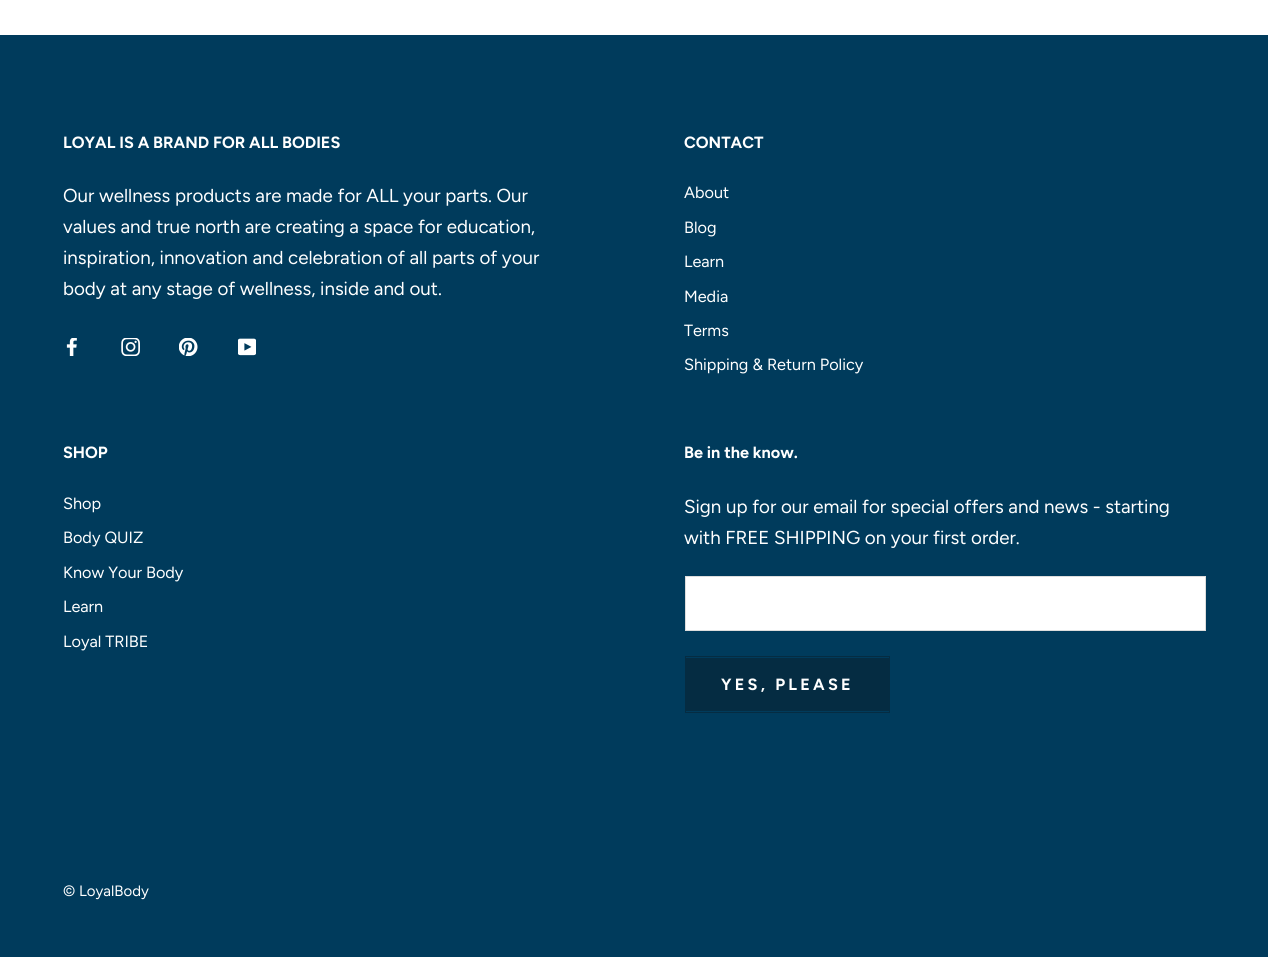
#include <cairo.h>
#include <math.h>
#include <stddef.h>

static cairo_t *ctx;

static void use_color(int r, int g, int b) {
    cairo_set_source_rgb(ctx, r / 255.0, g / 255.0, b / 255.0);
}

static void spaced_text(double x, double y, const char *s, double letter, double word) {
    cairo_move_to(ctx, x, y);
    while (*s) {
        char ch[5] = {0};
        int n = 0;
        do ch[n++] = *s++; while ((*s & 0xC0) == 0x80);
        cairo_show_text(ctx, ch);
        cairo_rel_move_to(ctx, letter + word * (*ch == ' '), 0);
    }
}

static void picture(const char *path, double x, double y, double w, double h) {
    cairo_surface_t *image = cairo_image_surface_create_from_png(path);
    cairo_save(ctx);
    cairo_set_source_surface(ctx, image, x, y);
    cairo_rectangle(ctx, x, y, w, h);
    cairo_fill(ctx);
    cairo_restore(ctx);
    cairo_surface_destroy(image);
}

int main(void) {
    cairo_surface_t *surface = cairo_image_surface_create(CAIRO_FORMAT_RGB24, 1268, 957);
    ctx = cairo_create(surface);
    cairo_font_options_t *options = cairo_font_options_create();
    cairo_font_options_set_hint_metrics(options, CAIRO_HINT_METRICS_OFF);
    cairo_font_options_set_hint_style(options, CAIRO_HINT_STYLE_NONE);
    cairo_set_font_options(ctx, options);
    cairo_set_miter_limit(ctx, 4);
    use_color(255, 255, 255);
    cairo_paint(ctx);
    use_color(0, 59, 92);
    cairo_rectangle(ctx, 0, 35, 1268, 922);
    cairo_fill(ctx);
    cairo_select_font_face(ctx, "Figtree", CAIRO_FONT_SLANT_NORMAL, CAIRO_FONT_WEIGHT_BOLD);
    cairo_set_font_size(ctx, 16.25);
    use_color(255, 255, 255);
    cairo_move_to(ctx, 63, 148);
    cairo_show_text(ctx, "LOYAL IS A BRAND FOR ALL BODIES");
    cairo_select_font_face(ctx, "Figtree", CAIRO_FONT_SLANT_NORMAL, CAIRO_FONT_WEIGHT_NORMAL);
    cairo_set_font_size(ctx, 18.75);
    cairo_move_to(ctx, 63, 202);
    cairo_show_text(ctx, "Our wellness products are made for ALL your parts. Our");
    cairo_move_to(ctx, 63, 233);
    cairo_show_text(ctx, "values and true north are creating a space for education,");
    cairo_move_to(ctx, 63, 264);
    cairo_show_text(ctx, "inspiration, innovation and celebration of all parts of your");
    cairo_move_to(ctx, 63, 295);
    cairo_show_text(ctx, "body at any stage of wellness, inside and out.");
    picture("img1.png", 66, 338, 11, 18);
    picture("img2.png", 121, 338, 19, 18);
    picture("img3.png", 179, 338, 19, 18);
    picture("img4.png", 238, 338, 18, 18);
    cairo_select_font_face(ctx, "Figtree", CAIRO_FONT_SLANT_NORMAL, CAIRO_FONT_WEIGHT_BOLD);
    cairo_set_font_size(ctx, 16.25);
    cairo_move_to(ctx, 684, 148);
    cairo_show_text(ctx, "CONTACT");
    cairo_select_font_face(ctx, "Figtree", CAIRO_FONT_SLANT_NORMAL, CAIRO_FONT_WEIGHT_NORMAL);
    cairo_move_to(ctx, 684, 198);
    cairo_show_text(ctx, "About");
    cairo_move_to(ctx, 684, 233);
    cairo_show_text(ctx, "Blog");
    cairo_move_to(ctx, 684, 267);
    cairo_show_text(ctx, "Learn");
    cairo_move_to(ctx, 684, 302);
    cairo_show_text(ctx, "Media");
    cairo_move_to(ctx, 684, 336);
    cairo_show_text(ctx, "Terms");
    cairo_move_to(ctx, 684, 370);
    cairo_show_text(ctx, "Shipping & Return Policy");
    cairo_select_font_face(ctx, "Figtree", CAIRO_FONT_SLANT_NORMAL, CAIRO_FONT_WEIGHT_BOLD);
    cairo_move_to(ctx, 63, 458);
    cairo_show_text(ctx, "SHOP");
    cairo_select_font_face(ctx, "Figtree", CAIRO_FONT_SLANT_NORMAL, CAIRO_FONT_WEIGHT_NORMAL);
    cairo_move_to(ctx, 63, 509);
    cairo_show_text(ctx, "Shop");
    cairo_move_to(ctx, 63, 543);
    cairo_show_text(ctx, "Body QUIZ");
    cairo_move_to(ctx, 63, 578);
    cairo_show_text(ctx, "Know Your Body");
    cairo_move_to(ctx, 63, 612);
    cairo_show_text(ctx, "Learn");
    cairo_move_to(ctx, 63, 647);
    cairo_show_text(ctx, "Loyal TRIBE");
    cairo_select_font_face(ctx, "Figtree", CAIRO_FONT_SLANT_NORMAL, CAIRO_FONT_WEIGHT_BOLD);
    cairo_move_to(ctx, 684, 458);
    cairo_show_text(ctx, "Be in the know.");
    cairo_select_font_face(ctx, "Figtree", CAIRO_FONT_SLANT_NORMAL, CAIRO_FONT_WEIGHT_NORMAL);
    cairo_set_font_size(ctx, 18.75);
    cairo_move_to(ctx, 684, 513);
    cairo_show_text(ctx, "Sign up for our email for special offers and news - starting");
    cairo_move_to(ctx, 684, 544);
    cairo_show_text(ctx, "with FREE SHIPPING on your first order.");
    cairo_rectangle(ctx, 685.5, 576.5, 520, 54);
    cairo_fill_preserve(ctx);
    use_color(221, 221, 221);
    cairo_set_line_width(ctx, 1);
    cairo_stroke(ctx);
    cairo_rectangle(ctx, 685.5, 656.5, 204, 56);
    use_color(5, 44, 66);
    cairo_stroke(ctx);
    cairo_rectangle(ctx, 686, 658, 203, 53);
    cairo_fill(ctx);
    cairo_select_font_face(ctx, "Figtree", CAIRO_FONT_SLANT_NORMAL, CAIRO_FONT_WEIGHT_BOLD);
    cairo_set_font_size(ctx, 16.25);
    use_color(255, 255, 255);
    spaced_text(721, 690, "YES, PLEASE", 3.25, 0);
    cairo_select_font_face(ctx, "Figtree", CAIRO_FONT_SLANT_NORMAL, CAIRO_FONT_WEIGHT_NORMAL);
    cairo_set_font_size(ctx, 15);
    cairo_move_to(ctx, 63, 896);
    cairo_show_text(ctx, "© LoyalBody");
    cairo_surface_write_to_png(surface, "result.png");
    cairo_font_options_destroy(options);
    cairo_destroy(ctx);
    cairo_surface_destroy(surface);
    return 0;
}
